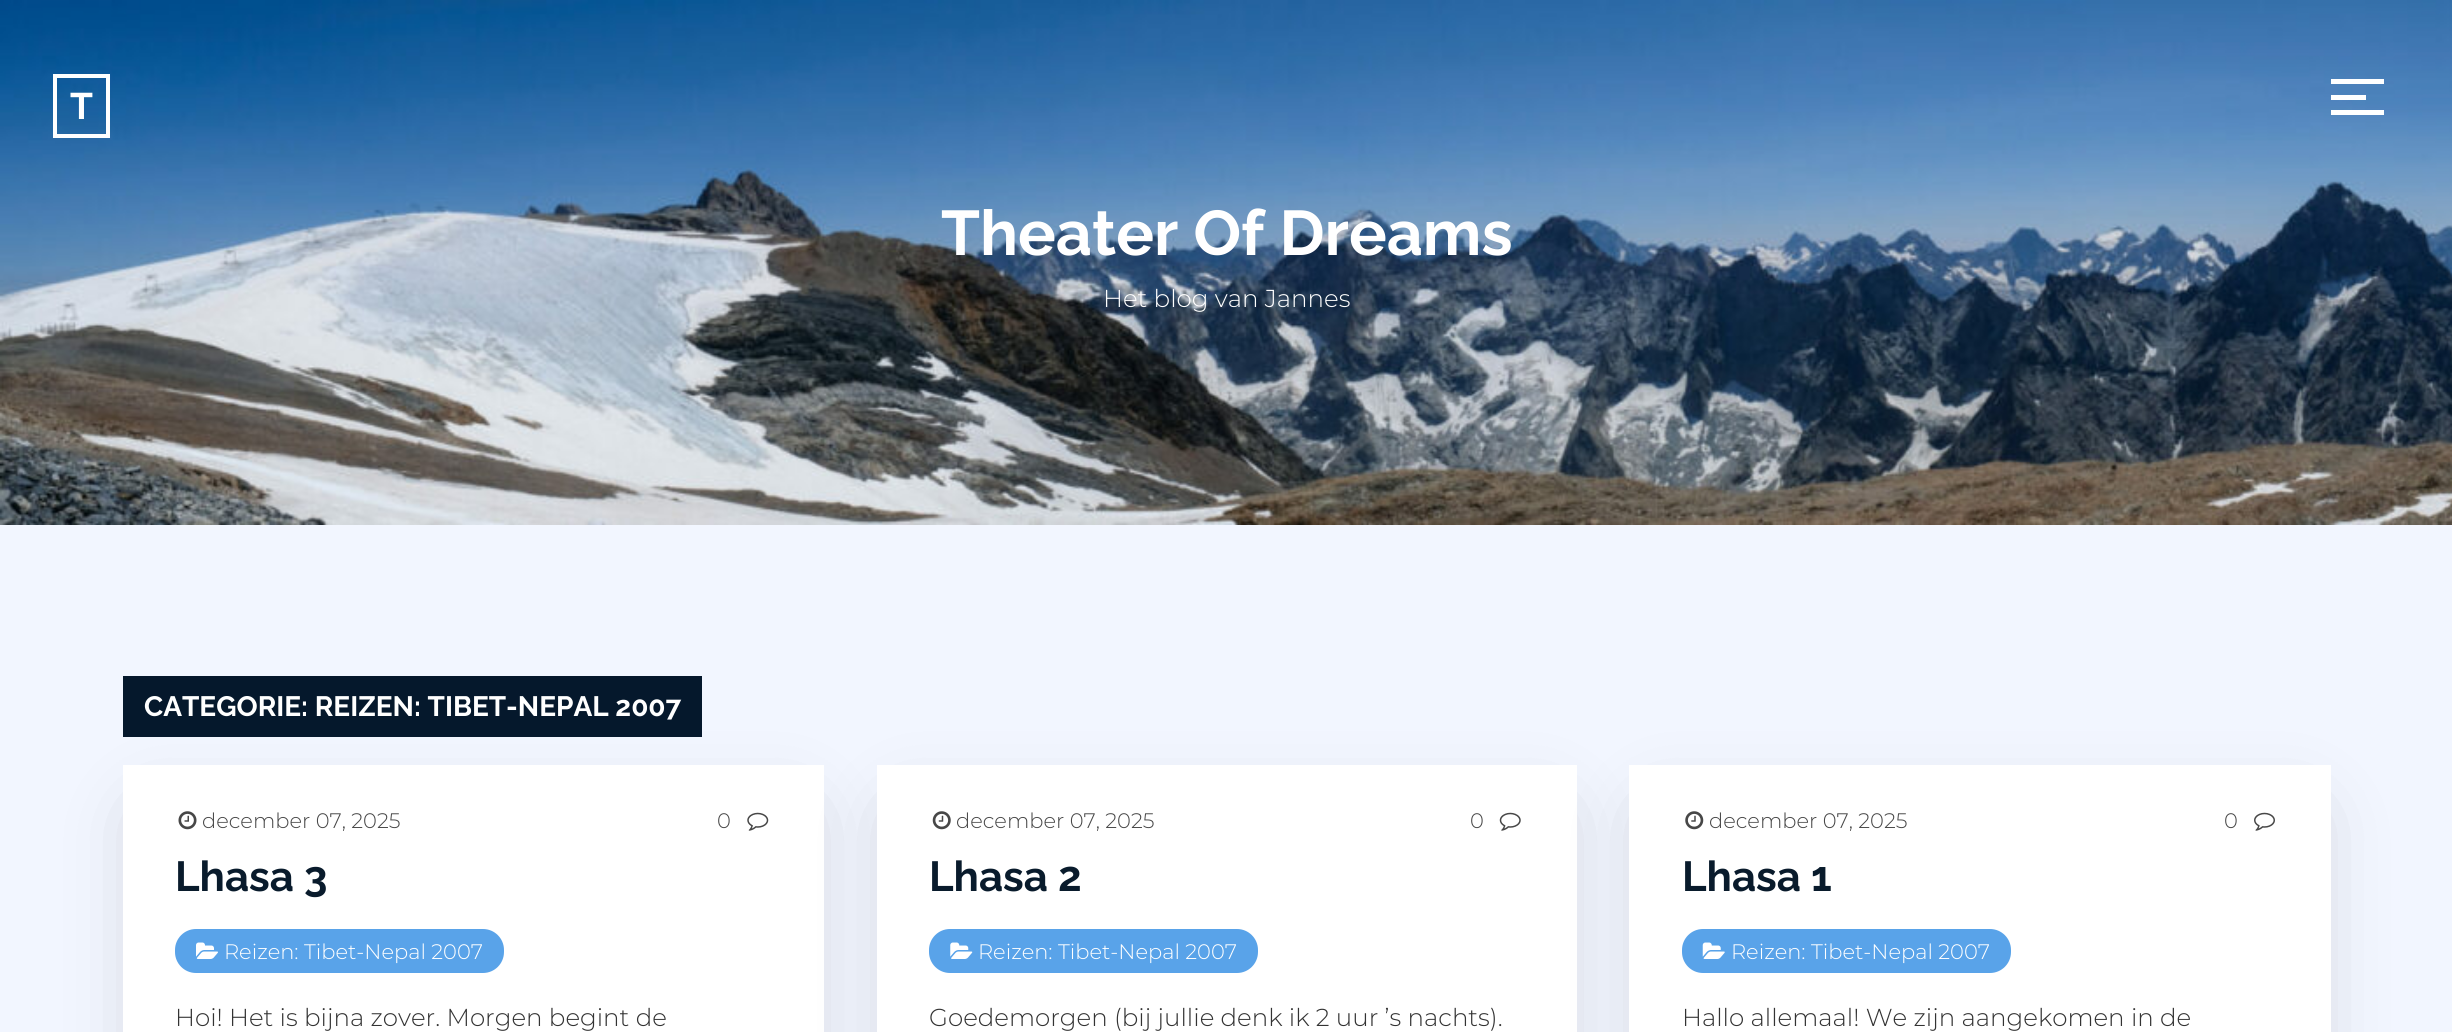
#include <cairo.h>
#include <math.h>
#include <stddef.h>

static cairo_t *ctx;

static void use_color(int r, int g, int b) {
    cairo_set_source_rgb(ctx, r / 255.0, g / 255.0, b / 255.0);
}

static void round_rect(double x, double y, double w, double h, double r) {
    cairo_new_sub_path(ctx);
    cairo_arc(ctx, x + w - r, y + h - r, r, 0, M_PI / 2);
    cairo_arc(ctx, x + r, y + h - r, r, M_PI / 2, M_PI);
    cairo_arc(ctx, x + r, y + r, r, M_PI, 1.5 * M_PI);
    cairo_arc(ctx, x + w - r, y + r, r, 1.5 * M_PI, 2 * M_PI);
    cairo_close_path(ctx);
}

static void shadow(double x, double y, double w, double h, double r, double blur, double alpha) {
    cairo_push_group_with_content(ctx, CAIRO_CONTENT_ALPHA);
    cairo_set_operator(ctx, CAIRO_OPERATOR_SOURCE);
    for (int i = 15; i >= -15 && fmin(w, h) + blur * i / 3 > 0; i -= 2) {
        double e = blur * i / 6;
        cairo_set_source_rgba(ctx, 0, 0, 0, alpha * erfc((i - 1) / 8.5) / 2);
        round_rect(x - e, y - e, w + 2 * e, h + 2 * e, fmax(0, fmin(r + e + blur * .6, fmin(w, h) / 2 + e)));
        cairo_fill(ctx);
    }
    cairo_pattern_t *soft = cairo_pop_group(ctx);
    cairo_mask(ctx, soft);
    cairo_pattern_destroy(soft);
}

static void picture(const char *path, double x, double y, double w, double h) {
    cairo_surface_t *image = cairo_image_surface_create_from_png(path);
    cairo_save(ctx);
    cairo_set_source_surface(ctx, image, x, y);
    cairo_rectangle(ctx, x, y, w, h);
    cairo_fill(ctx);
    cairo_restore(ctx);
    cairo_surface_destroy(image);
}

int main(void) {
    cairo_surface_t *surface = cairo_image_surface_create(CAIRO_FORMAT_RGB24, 2452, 1032);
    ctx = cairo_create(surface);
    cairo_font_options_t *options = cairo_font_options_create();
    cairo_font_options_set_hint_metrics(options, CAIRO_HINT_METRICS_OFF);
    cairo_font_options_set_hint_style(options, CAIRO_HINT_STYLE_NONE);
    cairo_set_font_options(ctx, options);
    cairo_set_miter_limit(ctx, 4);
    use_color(242, 246, 255);
    cairo_paint(ctx);
    picture("img1.png", 0, 0, 2452, 525);
    cairo_rectangle(ctx, 55, 76, 53, 60);
    use_color(255, 255, 255);
    cairo_set_line_width(ctx, 4);
    cairo_stroke(ctx);
    cairo_select_font_face(ctx, "Raleway", CAIRO_FONT_SLANT_NORMAL, CAIRO_FONT_WEIGHT_BOLD);
    cairo_set_font_size(ctx, 37);
    cairo_move_to(ctx, 70, 119);
    cairo_show_text(ctx, "T");
    cairo_rectangle(ctx, 2331, 79, 53, 5);
    cairo_fill(ctx);
    cairo_rectangle(ctx, 2331, 95, 35, 5);
    cairo_fill(ctx);
    cairo_rectangle(ctx, 2331, 110, 53, 5);
    cairo_fill(ctx);
    cairo_set_font_size(ctx, 63);
    cairo_move_to(ctx, 941, 255);
    cairo_show_text(ctx, "Theater Of Dreams");
    cairo_select_font_face(ctx, "Montserrat Light", CAIRO_FONT_SLANT_NORMAL, CAIRO_FONT_WEIGHT_NORMAL);
    cairo_set_font_size(ctx, 24.5);
    cairo_move_to(ctx, 1103, 307);
    cairo_show_text(ctx, "Het blog van Jannes");
    use_color(5, 24, 44);
    cairo_rectangle(ctx, 123, 676, 579, 61);
    cairo_fill(ctx);
    cairo_select_font_face(ctx, "Raleway", CAIRO_FONT_SLANT_NORMAL, CAIRO_FONT_WEIGHT_BOLD);
    cairo_set_font_size(ctx, 28);
    use_color(255, 255, 255);
    cairo_move_to(ctx, 144, 716);
    cairo_show_text(ctx, "CATEGORIE: REIZEN: TIBET-NEPAL 2007");
    use_color(0, 0, 0);
    shadow(149, 817, 649, 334, 0, 39.5, 0.2);
    use_color(255, 255, 255);
    cairo_rectangle(ctx, 123, 765, 701, 267);
    cairo_fill(ctx);
    picture("img2.png", 178, 811, 19, 19);
    cairo_select_font_face(ctx, "Montserrat Light", CAIRO_FONT_SLANT_NORMAL, CAIRO_FONT_WEIGHT_NORMAL);
    cairo_set_font_size(ctx, 21);
    use_color(71, 71, 71);
    cairo_move_to(ctx, 202, 828);
    cairo_show_text(ctx, "december 07, 2025");
    cairo_move_to(ctx, 717, 828);
    cairo_show_text(ctx, "0");
    picture("img3.png", 747, 812, 22, 19);
    cairo_select_font_face(ctx, "Raleway", CAIRO_FONT_SLANT_NORMAL, CAIRO_FONT_WEIGHT_BOLD);
    cairo_set_font_size(ctx, 42);
    use_color(9, 27, 44);
    cairo_move_to(ctx, 175, 891);
    cairo_show_text(ctx, "Lhasa 3");
    use_color(89, 163, 233);
    round_rect(175, 929, 329, 44, 21);
    cairo_fill(ctx);
    picture("img4.png", 196, 942, 22, 17);
    cairo_select_font_face(ctx, "Montserrat Light", CAIRO_FONT_SLANT_NORMAL, CAIRO_FONT_WEIGHT_NORMAL);
    cairo_set_font_size(ctx, 21);
    use_color(255, 255, 255);
    cairo_move_to(ctx, 224, 959);
    cairo_show_text(ctx, "Reizen: Tibet-Nepal 2007");
    cairo_set_font_size(ctx, 24.5);
    use_color(51, 51, 51);
    cairo_move_to(ctx, 175, 1026);
    cairo_show_text(ctx, "Hoi! Het is bijna zover. Morgen begint de");
    use_color(0, 0, 0);
    shadow(903, 817, 648, 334, 0, 39.5, 0.2);
    use_color(255, 255, 255);
    cairo_rectangle(ctx, 877, 765, 700, 267);
    cairo_fill(ctx);
    picture("img5.png", 932, 811, 19, 19);
    cairo_set_font_size(ctx, 21);
    use_color(71, 71, 71);
    cairo_move_to(ctx, 956, 828);
    cairo_show_text(ctx, "december 07, 2025");
    cairo_move_to(ctx, 1470, 828);
    cairo_show_text(ctx, "0");
    picture("img6.png", 1499, 812, 22, 19);
    cairo_select_font_face(ctx, "Raleway", CAIRO_FONT_SLANT_NORMAL, CAIRO_FONT_WEIGHT_BOLD);
    cairo_set_font_size(ctx, 42);
    use_color(9, 27, 44);
    cairo_move_to(ctx, 929, 891);
    cairo_show_text(ctx, "Lhasa 2");
    use_color(89, 163, 233);
    round_rect(929, 929, 329, 44, 21);
    cairo_fill(ctx);
    picture("img7.png", 950, 942, 23, 17);
    cairo_select_font_face(ctx, "Montserrat Light", CAIRO_FONT_SLANT_NORMAL, CAIRO_FONT_WEIGHT_NORMAL);
    cairo_set_font_size(ctx, 21);
    use_color(255, 255, 255);
    cairo_move_to(ctx, 978, 959);
    cairo_show_text(ctx, "Reizen: Tibet-Nepal 2007");
    cairo_set_font_size(ctx, 24.5);
    use_color(51, 51, 51);
    cairo_move_to(ctx, 929, 1026);
    cairo_show_text(ctx, "Goedemorgen (bij jullie denk ik 2 uur ’s nachts).");
    use_color(0, 0, 0);
    shadow(1656, 817, 649, 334, 0, 39.5, 0.2);
    use_color(255, 255, 255);
    cairo_rectangle(ctx, 1629, 765, 702, 267);
    cairo_fill(ctx);
    picture("img8.png", 1685, 811, 19, 19);
    cairo_set_font_size(ctx, 21);
    use_color(71, 71, 71);
    cairo_move_to(ctx, 1709, 828);
    cairo_show_text(ctx, "december 07, 2025");
    cairo_move_to(ctx, 2224, 828);
    cairo_show_text(ctx, "0");
    picture("img9.png", 2254, 812, 21, 19);
    cairo_select_font_face(ctx, "Raleway", CAIRO_FONT_SLANT_NORMAL, CAIRO_FONT_WEIGHT_BOLD);
    cairo_set_font_size(ctx, 42);
    use_color(9, 27, 44);
    cairo_move_to(ctx, 1682, 891);
    cairo_show_text(ctx, "Lhasa 1");
    use_color(89, 163, 233);
    round_rect(1682, 929, 329, 44, 21);
    cairo_fill(ctx);
    picture("img10.png", 1702, 942, 23, 17);
    cairo_select_font_face(ctx, "Montserrat Light", CAIRO_FONT_SLANT_NORMAL, CAIRO_FONT_WEIGHT_NORMAL);
    cairo_set_font_size(ctx, 21);
    use_color(255, 255, 255);
    cairo_move_to(ctx, 1731, 959);
    cairo_show_text(ctx, "Reizen: Tibet-Nepal 2007");
    cairo_set_font_size(ctx, 24.5);
    use_color(51, 51, 51);
    cairo_move_to(ctx, 1682, 1026);
    cairo_show_text(ctx, "Hallo allemaal! We zijn aangekomen in de");
    cairo_surface_write_to_png(surface, "result.png");
    cairo_font_options_destroy(options);
    cairo_destroy(ctx);
    cairo_surface_destroy(surface);
    return 0;
}
